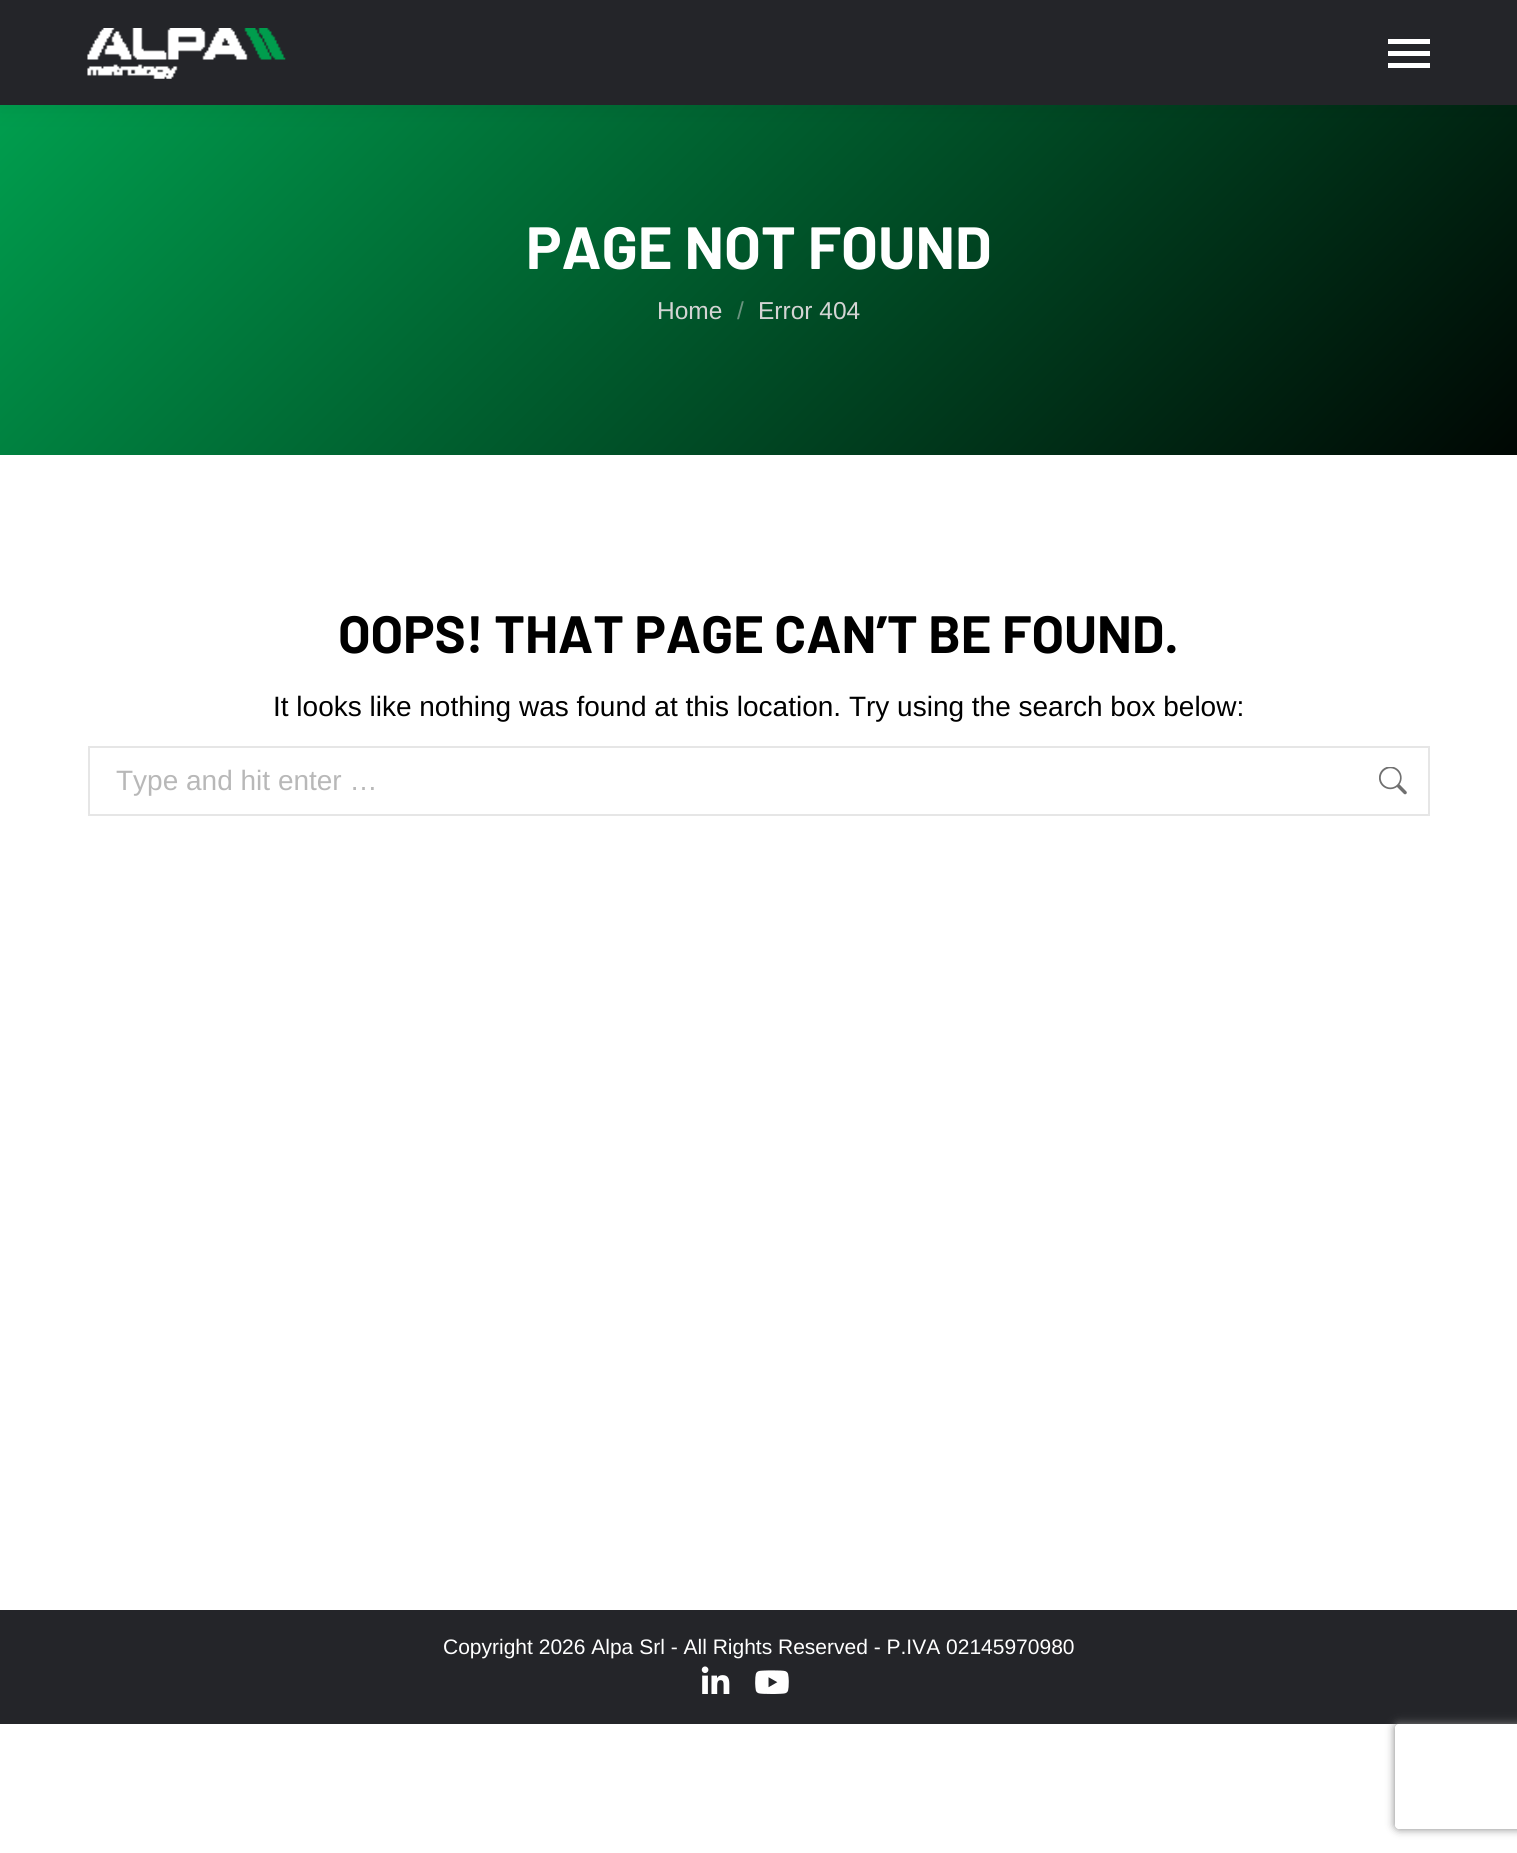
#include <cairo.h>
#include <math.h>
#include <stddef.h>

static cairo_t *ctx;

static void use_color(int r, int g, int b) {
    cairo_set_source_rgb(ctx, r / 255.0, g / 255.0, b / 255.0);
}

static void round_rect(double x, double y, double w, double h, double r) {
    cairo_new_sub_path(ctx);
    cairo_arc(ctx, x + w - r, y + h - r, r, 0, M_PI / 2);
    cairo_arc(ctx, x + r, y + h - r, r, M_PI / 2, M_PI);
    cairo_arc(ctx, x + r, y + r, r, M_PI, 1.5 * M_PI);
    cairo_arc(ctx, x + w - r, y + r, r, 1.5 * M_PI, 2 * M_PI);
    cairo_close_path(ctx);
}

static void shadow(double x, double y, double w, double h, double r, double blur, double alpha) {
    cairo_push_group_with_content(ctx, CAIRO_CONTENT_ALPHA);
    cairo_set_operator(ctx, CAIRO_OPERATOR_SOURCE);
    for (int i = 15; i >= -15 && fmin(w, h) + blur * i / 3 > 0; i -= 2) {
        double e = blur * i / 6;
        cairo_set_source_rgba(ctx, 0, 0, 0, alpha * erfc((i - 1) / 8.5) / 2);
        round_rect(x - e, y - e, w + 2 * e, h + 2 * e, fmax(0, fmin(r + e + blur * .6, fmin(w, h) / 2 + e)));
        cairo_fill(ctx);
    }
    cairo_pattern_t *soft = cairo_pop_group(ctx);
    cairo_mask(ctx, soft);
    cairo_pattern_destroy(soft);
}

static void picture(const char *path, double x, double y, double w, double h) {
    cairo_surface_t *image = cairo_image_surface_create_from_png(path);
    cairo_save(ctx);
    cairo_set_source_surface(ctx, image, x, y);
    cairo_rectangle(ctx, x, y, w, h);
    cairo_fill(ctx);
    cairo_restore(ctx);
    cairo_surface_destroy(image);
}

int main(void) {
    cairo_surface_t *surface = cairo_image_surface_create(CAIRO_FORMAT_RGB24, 1517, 1853);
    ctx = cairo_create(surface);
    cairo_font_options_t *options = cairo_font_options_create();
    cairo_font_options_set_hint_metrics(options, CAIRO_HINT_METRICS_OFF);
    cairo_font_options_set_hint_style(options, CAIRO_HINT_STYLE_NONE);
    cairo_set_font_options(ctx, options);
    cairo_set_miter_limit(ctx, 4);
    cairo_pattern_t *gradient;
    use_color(255, 255, 255);
    cairo_paint(ctx);
    gradient = cairo_pattern_create_linear(292, -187, 1225, 747);
    cairo_pattern_add_color_stop_rgba(gradient, 0, 0, 0.62, 0.306, 1);
    cairo_pattern_add_color_stop_rgba(gradient, 1, 0, 0.027, 0.012, 1);
    cairo_set_source(ctx, gradient);
    cairo_pattern_destroy(gradient);
    cairo_rectangle(ctx, 0, 105, 1517, 350);
    cairo_fill(ctx);
    use_color(0, 0, 0);
    shadow(-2, -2, 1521, 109, 0, 13, 0.07);
    use_color(36, 37, 41);
    cairo_rectangle(ctx, 0, 0, 1517, 105);
    cairo_fill(ctx);
    picture("img1.png", 87, 28, 199, 51);
    use_color(255, 255, 255);
    cairo_rectangle(ctx, 1388, 39, 42, 5);
    cairo_fill(ctx);
    cairo_rectangle(ctx, 1388, 51, 42, 5);
    cairo_fill(ctx);
    cairo_rectangle(ctx, 1388, 63, 42, 5);
    cairo_fill(ctx);
    cairo_select_font_face(ctx, "Barlow", CAIRO_FONT_SLANT_NORMAL, CAIRO_FONT_WEIGHT_BOLD);
    cairo_set_font_size(ctx, 59.5);
    cairo_move_to(ctx, 526, 269);
    cairo_show_text(ctx, "PAGE NOT FOUND");
    cairo_select_font_face(ctx, "Liberation Sans", CAIRO_FONT_SLANT_NORMAL, CAIRO_FONT_WEIGHT_NORMAL);
    cairo_set_font_size(ctx, 24.5);
    use_color(212, 212, 212);
    cairo_move_to(ctx, 657, 319);
    cairo_show_text(ctx, "Home");
    use_color(106, 147, 126);
    cairo_move_to(ctx, 737, 319);
    cairo_show_text(ctx, "/");
    use_color(212, 212, 212);
    cairo_move_to(ctx, 758, 319);
    cairo_show_text(ctx, "Error 404");
    cairo_select_font_face(ctx, "Barlow", CAIRO_FONT_SLANT_NORMAL, CAIRO_FONT_WEIGHT_BOLD);
    cairo_set_font_size(ctx, 52.5);
    use_color(0, 0, 0);
    cairo_move_to(ctx, 338, 653);
    cairo_show_text(ctx, "OOPS! THAT PAGE CAN’T BE FOUND.");
    cairo_select_font_face(ctx, "Liberation Sans", CAIRO_FONT_SLANT_NORMAL, CAIRO_FONT_WEIGHT_NORMAL);
    cairo_set_font_size(ctx, 28);
    cairo_move_to(ctx, 273, 716);
    cairo_show_text(ctx, "It looks like nothing was found at this location. Try using the search box below:");
    cairo_rectangle(ctx, 89, 747, 1340, 68);
    use_color(230, 230, 230);
    cairo_stroke(ctx);
    use_color(184, 184, 184);
    cairo_move_to(ctx, 116, 790);
    cairo_show_text(ctx, "Type and hit enter …");
    picture("img2.png", 1379, 767, 28, 28);
    use_color(36, 37, 41);
    cairo_rectangle(ctx, 0, 1610, 1517, 114);
    cairo_fill(ctx);
    cairo_set_font_size(ctx, 21);
    use_color(255, 255, 255);
    cairo_move_to(ctx, 443, 1654);
    cairo_show_text(ctx, "Copyright 2026 Alpa Srl - All Rights Reserved - P.IVA 02145970980");
    picture("img3.png", 701, 1666, 29, 28);
    picture("img4.png", 755, 1670, 34, 24);
    cairo_save(ctx);
    cairo_set_fill_rule(ctx, CAIRO_FILL_RULE_EVEN_ODD);
    cairo_new_path(ctx);
    cairo_move_to(ctx, 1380, 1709);
    cairo_line_to(ctx, 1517, 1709);
    cairo_line_to(ctx, 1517, 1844);
    cairo_line_to(ctx, 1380, 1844);
    cairo_close_path(ctx);
    cairo_move_to(ctx, 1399, 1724);
    cairo_line_to(ctx, 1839, 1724);
    cairo_curve_to(ctx, 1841, 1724, 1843, 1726, 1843, 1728);
    cairo_line_to(ctx, 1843, 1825);
    cairo_curve_to(ctx, 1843, 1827, 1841, 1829, 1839, 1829);
    cairo_line_to(ctx, 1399, 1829);
    cairo_curve_to(ctx, 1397, 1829, 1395, 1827, 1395, 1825);
    cairo_line_to(ctx, 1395, 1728);
    cairo_curve_to(ctx, 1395, 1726, 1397, 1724, 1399, 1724);
    cairo_close_path(ctx);
    cairo_clip(ctx);
    use_color(128, 128, 128);
    shadow(1395, 1724, 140, 105, 4, 4.5, 1);
    cairo_restore(ctx);
    cairo_surface_write_to_png(surface, "result.png");
    cairo_font_options_destroy(options);
    cairo_destroy(ctx);
    cairo_surface_destroy(surface);
    return 0;
}
